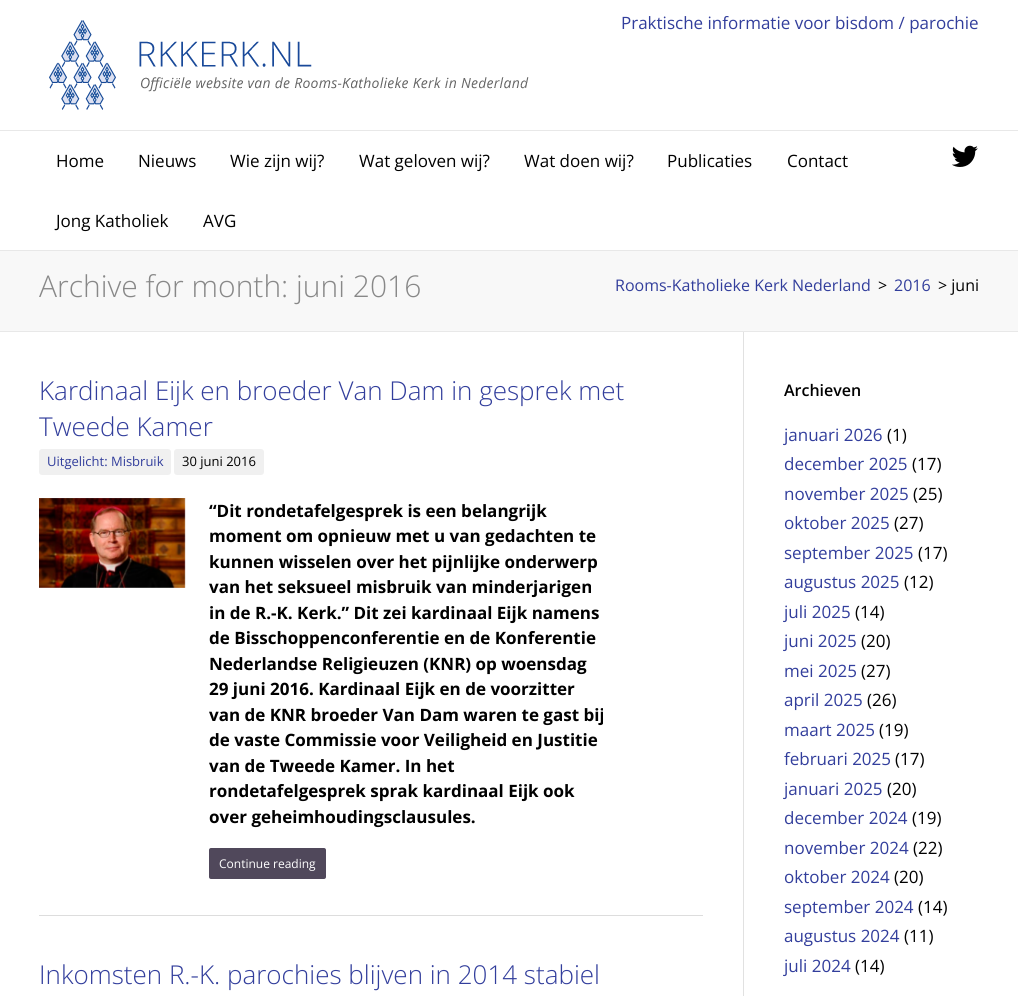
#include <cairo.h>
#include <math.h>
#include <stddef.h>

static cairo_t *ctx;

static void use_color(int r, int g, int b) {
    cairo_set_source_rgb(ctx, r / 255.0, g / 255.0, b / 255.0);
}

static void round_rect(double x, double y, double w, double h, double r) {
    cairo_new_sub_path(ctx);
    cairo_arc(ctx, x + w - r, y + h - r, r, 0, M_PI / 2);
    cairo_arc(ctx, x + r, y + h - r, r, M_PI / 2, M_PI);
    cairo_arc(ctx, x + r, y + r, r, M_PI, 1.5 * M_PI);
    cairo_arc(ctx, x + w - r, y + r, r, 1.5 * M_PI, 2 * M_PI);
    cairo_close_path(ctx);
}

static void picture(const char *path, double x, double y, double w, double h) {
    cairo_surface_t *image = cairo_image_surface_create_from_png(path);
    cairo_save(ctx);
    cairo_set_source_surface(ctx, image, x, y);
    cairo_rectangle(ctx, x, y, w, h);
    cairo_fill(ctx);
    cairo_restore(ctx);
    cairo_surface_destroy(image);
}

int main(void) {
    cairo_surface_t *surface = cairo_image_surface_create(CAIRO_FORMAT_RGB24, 1018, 996);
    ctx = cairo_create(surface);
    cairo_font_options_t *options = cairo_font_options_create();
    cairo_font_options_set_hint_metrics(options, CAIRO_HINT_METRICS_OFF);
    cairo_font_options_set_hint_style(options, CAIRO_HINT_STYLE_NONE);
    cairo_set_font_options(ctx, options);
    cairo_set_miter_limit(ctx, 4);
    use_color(255, 255, 255);
    cairo_paint(ctx);
    use_color(232, 232, 232);
    cairo_rectangle(ctx, 0, 130, 1018, 1);
    cairo_fill(ctx);
    picture("img1.png", 49, 20, 480, 90);
    cairo_select_font_face(ctx, "Open Sans", CAIRO_FONT_SLANT_NORMAL, CAIRO_FONT_WEIGHT_NORMAL);
    cairo_set_font_size(ctx, 17);
    use_color(50, 62, 156);
    cairo_move_to(ctx, 621, 29);
    cairo_show_text(ctx, "Praktische informatie voor bisdom / parochie");
    use_color(232, 232, 232);
    cairo_rectangle(ctx, 0, 250, 1018, 1);
    cairo_fill(ctx);
    use_color(0, 0, 0);
    cairo_move_to(ctx, 56, 167);
    cairo_show_text(ctx, "Home");
    cairo_move_to(ctx, 138, 167);
    cairo_show_text(ctx, "Nieuws");
    cairo_move_to(ctx, 230, 167);
    cairo_show_text(ctx, "Wie zijn wij?");
    cairo_move_to(ctx, 359, 167);
    cairo_show_text(ctx, "Wat geloven wij?");
    cairo_move_to(ctx, 524, 167);
    cairo_show_text(ctx, "Wat doen wij?");
    cairo_move_to(ctx, 667, 167);
    cairo_show_text(ctx, "Publicaties");
    cairo_move_to(ctx, 787, 167);
    cairo_show_text(ctx, "Contact");
    cairo_move_to(ctx, 56, 227);
    cairo_show_text(ctx, "Jong Katholiek");
    cairo_move_to(ctx, 203, 227);
    cairo_show_text(ctx, "AVG");
    picture("img2.png", 952, 145, 26, 22);
    use_color(248, 248, 248);
    cairo_rectangle(ctx, 0, 251, 1018, 80);
    cairo_fill(ctx);
    use_color(232, 232, 232);
    cairo_rectangle(ctx, 0, 331, 1018, 1);
    cairo_fill(ctx);
    cairo_select_font_face(ctx, "Open Sans Light", CAIRO_FONT_SLANT_NORMAL, CAIRO_FONT_WEIGHT_NORMAL);
    cairo_set_font_size(ctx, 30);
    use_color(136, 136, 136);
    cairo_move_to(ctx, 39, 297);
    cairo_show_text(ctx, "Archive for month: juni 2016");
    cairo_select_font_face(ctx, "Open Sans", CAIRO_FONT_SLANT_NORMAL, CAIRO_FONT_WEIGHT_NORMAL);
    cairo_set_font_size(ctx, 16);
    use_color(50, 62, 156);
    cairo_move_to(ctx, 615, 291);
    cairo_show_text(ctx, "Rooms-Katholieke Kerk Nederland");
    use_color(0, 0, 0);
    cairo_move_to(ctx, 878, 291);
    cairo_show_text(ctx, ">");
    use_color(50, 62, 156);
    cairo_move_to(ctx, 894, 291);
    cairo_show_text(ctx, "2016");
    use_color(0, 0, 0);
    cairo_move_to(ctx, 938, 291);
    cairo_show_text(ctx, "> juni");
    use_color(225, 225, 225);
    cairo_rectangle(ctx, 743, 332, 1, 664);
    cairo_fill(ctx);
    use_color(221, 221, 221);
    cairo_rectangle(ctx, 39, 915, 664, 1);
    cairo_fill(ctx);
    cairo_select_font_face(ctx, "Open Sans Light", CAIRO_FONT_SLANT_NORMAL, CAIRO_FONT_WEIGHT_NORMAL);
    cairo_set_font_size(ctx, 26);
    use_color(50, 62, 156);
    cairo_move_to(ctx, 39, 400);
    cairo_show_text(ctx, "Kardinaal Eijk en broeder Van Dam in gesprek met");
    cairo_move_to(ctx, 39, 436);
    cairo_show_text(ctx, "Tweede Kamer");
    use_color(240, 240, 240);
    round_rect(39, 449, 132, 26, 3);
    cairo_fill(ctx);
    cairo_select_font_face(ctx, "Open Sans", CAIRO_FONT_SLANT_NORMAL, CAIRO_FONT_WEIGHT_NORMAL);
    cairo_set_font_size(ctx, 13);
    use_color(50, 62, 156);
    cairo_move_to(ctx, 47, 466);
    cairo_show_text(ctx, "Uitgelicht: Misbruik");
    use_color(240, 240, 240);
    round_rect(174, 449, 90, 26, 3);
    cairo_fill(ctx);
    use_color(0, 0, 0);
    cairo_move_to(ctx, 182, 466);
    cairo_show_text(ctx, "30 juni 2016");
    picture("img3.png", 39, 498, 147, 90);
    cairo_select_font_face(ctx, "Open Sans", CAIRO_FONT_SLANT_NORMAL, CAIRO_FONT_WEIGHT_BOLD);
    cairo_set_font_size(ctx, 17);
    cairo_move_to(ctx, 209, 517);
    cairo_show_text(ctx, "“Dit rondetafelgesprek is een belangrijk");
    cairo_move_to(ctx, 209, 542);
    cairo_show_text(ctx, "moment om opnieuw met u van gedachten te");
    cairo_move_to(ctx, 209, 568);
    cairo_show_text(ctx, "kunnen wisselen over het pijnlijke onderwerp");
    cairo_move_to(ctx, 209, 593);
    cairo_show_text(ctx, "van het seksueel misbruik van minderjarigen");
    cairo_move_to(ctx, 209, 619);
    cairo_show_text(ctx, "in de R.-K. Kerk.” Dit zei kardinaal Eijk namens");
    cairo_move_to(ctx, 209, 644);
    cairo_show_text(ctx, "de Bisschoppenconferentie en de Konferentie");
    cairo_move_to(ctx, 209, 670);
    cairo_show_text(ctx, "Nederlandse Religieuzen (KNR) op woensdag");
    cairo_move_to(ctx, 209, 695);
    cairo_show_text(ctx, "29 juni 2016. Kardinaal Eijk en de voorzitter");
    cairo_move_to(ctx, 209, 721);
    cairo_show_text(ctx, "van de KNR broeder Van Dam waren te gast bij");
    cairo_move_to(ctx, 209, 746);
    cairo_show_text(ctx, "de vaste Commissie voor Veiligheid en Justitie");
    cairo_move_to(ctx, 209, 772);
    cairo_show_text(ctx, "van de Tweede Kamer. In het");
    cairo_move_to(ctx, 209, 797);
    cairo_show_text(ctx, "rondetafelgesprek sprak kardinaal Eijk ook");
    cairo_move_to(ctx, 209, 823);
    cairo_show_text(ctx, "over geheimhoudingsclausules.");
    use_color(80, 72, 91);
    round_rect(209, 848, 117, 31, 2);
    cairo_fill(ctx);
    cairo_select_font_face(ctx, "Open Sans", CAIRO_FONT_SLANT_NORMAL, CAIRO_FONT_WEIGHT_NORMAL);
    cairo_set_font_size(ctx, 12);
    use_color(255, 255, 255);
    cairo_move_to(ctx, 219, 868);
    cairo_show_text(ctx, "Continue reading");
    cairo_select_font_face(ctx, "Open Sans Light", CAIRO_FONT_SLANT_NORMAL, CAIRO_FONT_WEIGHT_NORMAL);
    cairo_set_font_size(ctx, 26);
    use_color(50, 62, 156);
    cairo_move_to(ctx, 39, 984);
    cairo_show_text(ctx, "Inkomsten R.-K. parochies blijven in 2014 stabiel");
    cairo_select_font_face(ctx, "Open Sans SemiBold", CAIRO_FONT_SLANT_NORMAL, CAIRO_FONT_WEIGHT_NORMAL);
    cairo_set_font_size(ctx, 16);
    use_color(0, 0, 0);
    cairo_move_to(ctx, 784, 396);
    cairo_show_text(ctx, "Archieven");
    cairo_select_font_face(ctx, "Open Sans", CAIRO_FONT_SLANT_NORMAL, CAIRO_FONT_WEIGHT_NORMAL);
    cairo_set_font_size(ctx, 17);
    use_color(50, 62, 156);
    cairo_move_to(ctx, 784, 441);
    cairo_show_text(ctx, "januari 2026");
    use_color(0, 0, 0);
    cairo_move_to(ctx, 887, 441);
    cairo_show_text(ctx, "(1)");
    use_color(50, 62, 156);
    cairo_move_to(ctx, 784, 470);
    cairo_show_text(ctx, "december 2025");
    use_color(0, 0, 0);
    cairo_move_to(ctx, 912, 470);
    cairo_show_text(ctx, "(17)");
    use_color(50, 62, 156);
    cairo_move_to(ctx, 784, 500);
    cairo_show_text(ctx, "november 2025");
    use_color(0, 0, 0);
    cairo_move_to(ctx, 913, 500);
    cairo_show_text(ctx, "(25)");
    use_color(50, 62, 156);
    cairo_move_to(ctx, 784, 529);
    cairo_show_text(ctx, "oktober 2025");
    use_color(0, 0, 0);
    cairo_move_to(ctx, 894, 529);
    cairo_show_text(ctx, "(27)");
    use_color(50, 62, 156);
    cairo_move_to(ctx, 784, 559);
    cairo_show_text(ctx, "september 2025");
    use_color(0, 0, 0);
    cairo_move_to(ctx, 918, 559);
    cairo_show_text(ctx, "(17)");
    use_color(50, 62, 156);
    cairo_move_to(ctx, 784, 588);
    cairo_show_text(ctx, "augustus 2025");
    use_color(0, 0, 0);
    cairo_move_to(ctx, 904, 588);
    cairo_show_text(ctx, "(12)");
    use_color(50, 62, 156);
    cairo_move_to(ctx, 784, 618);
    cairo_show_text(ctx, "juli 2025");
    use_color(0, 0, 0);
    cairo_move_to(ctx, 855, 618);
    cairo_show_text(ctx, "(14)");
    use_color(50, 62, 156);
    cairo_move_to(ctx, 784, 647);
    cairo_show_text(ctx, "juni 2025");
    use_color(0, 0, 0);
    cairo_move_to(ctx, 861, 647);
    cairo_show_text(ctx, "(20)");
    use_color(50, 62, 156);
    cairo_move_to(ctx, 784, 677);
    cairo_show_text(ctx, "mei 2025");
    use_color(0, 0, 0);
    cairo_move_to(ctx, 861, 677);
    cairo_show_text(ctx, "(27)");
    use_color(50, 62, 156);
    cairo_move_to(ctx, 784, 706);
    cairo_show_text(ctx, "april 2025");
    use_color(0, 0, 0);
    cairo_move_to(ctx, 867, 706);
    cairo_show_text(ctx, "(26)");
    use_color(50, 62, 156);
    cairo_move_to(ctx, 784, 736);
    cairo_show_text(ctx, "maart 2025");
    use_color(0, 0, 0);
    cairo_move_to(ctx, 879, 736);
    cairo_show_text(ctx, "(19)");
    use_color(50, 62, 156);
    cairo_move_to(ctx, 784, 765);
    cairo_show_text(ctx, "februari 2025");
    use_color(0, 0, 0);
    cairo_move_to(ctx, 895, 765);
    cairo_show_text(ctx, "(17)");
    use_color(50, 62, 156);
    cairo_move_to(ctx, 784, 795);
    cairo_show_text(ctx, "januari 2025");
    use_color(0, 0, 0);
    cairo_move_to(ctx, 887, 795);
    cairo_show_text(ctx, "(20)");
    use_color(50, 62, 156);
    cairo_move_to(ctx, 784, 824);
    cairo_show_text(ctx, "december 2024");
    use_color(0, 0, 0);
    cairo_move_to(ctx, 912, 824);
    cairo_show_text(ctx, "(19)");
    use_color(50, 62, 156);
    cairo_move_to(ctx, 784, 854);
    cairo_show_text(ctx, "november 2024");
    use_color(0, 0, 0);
    cairo_move_to(ctx, 913, 854);
    cairo_show_text(ctx, "(22)");
    use_color(50, 62, 156);
    cairo_move_to(ctx, 784, 883);
    cairo_show_text(ctx, "oktober 2024");
    use_color(0, 0, 0);
    cairo_move_to(ctx, 894, 883);
    cairo_show_text(ctx, "(20)");
    use_color(50, 62, 156);
    cairo_move_to(ctx, 784, 913);
    cairo_show_text(ctx, "september 2024");
    use_color(0, 0, 0);
    cairo_move_to(ctx, 918, 913);
    cairo_show_text(ctx, "(14)");
    use_color(50, 62, 156);
    cairo_move_to(ctx, 784, 942);
    cairo_show_text(ctx, "augustus 2024");
    use_color(0, 0, 0);
    cairo_move_to(ctx, 904, 942);
    cairo_show_text(ctx, "(11)");
    use_color(50, 62, 156);
    cairo_move_to(ctx, 784, 972);
    cairo_show_text(ctx, "juli 2024");
    use_color(0, 0, 0);
    cairo_move_to(ctx, 855, 972);
    cairo_show_text(ctx, "(14)");
    cairo_surface_write_to_png(surface, "result.png");
    cairo_font_options_destroy(options);
    cairo_destroy(ctx);
    cairo_surface_destroy(surface);
    return 0;
}
